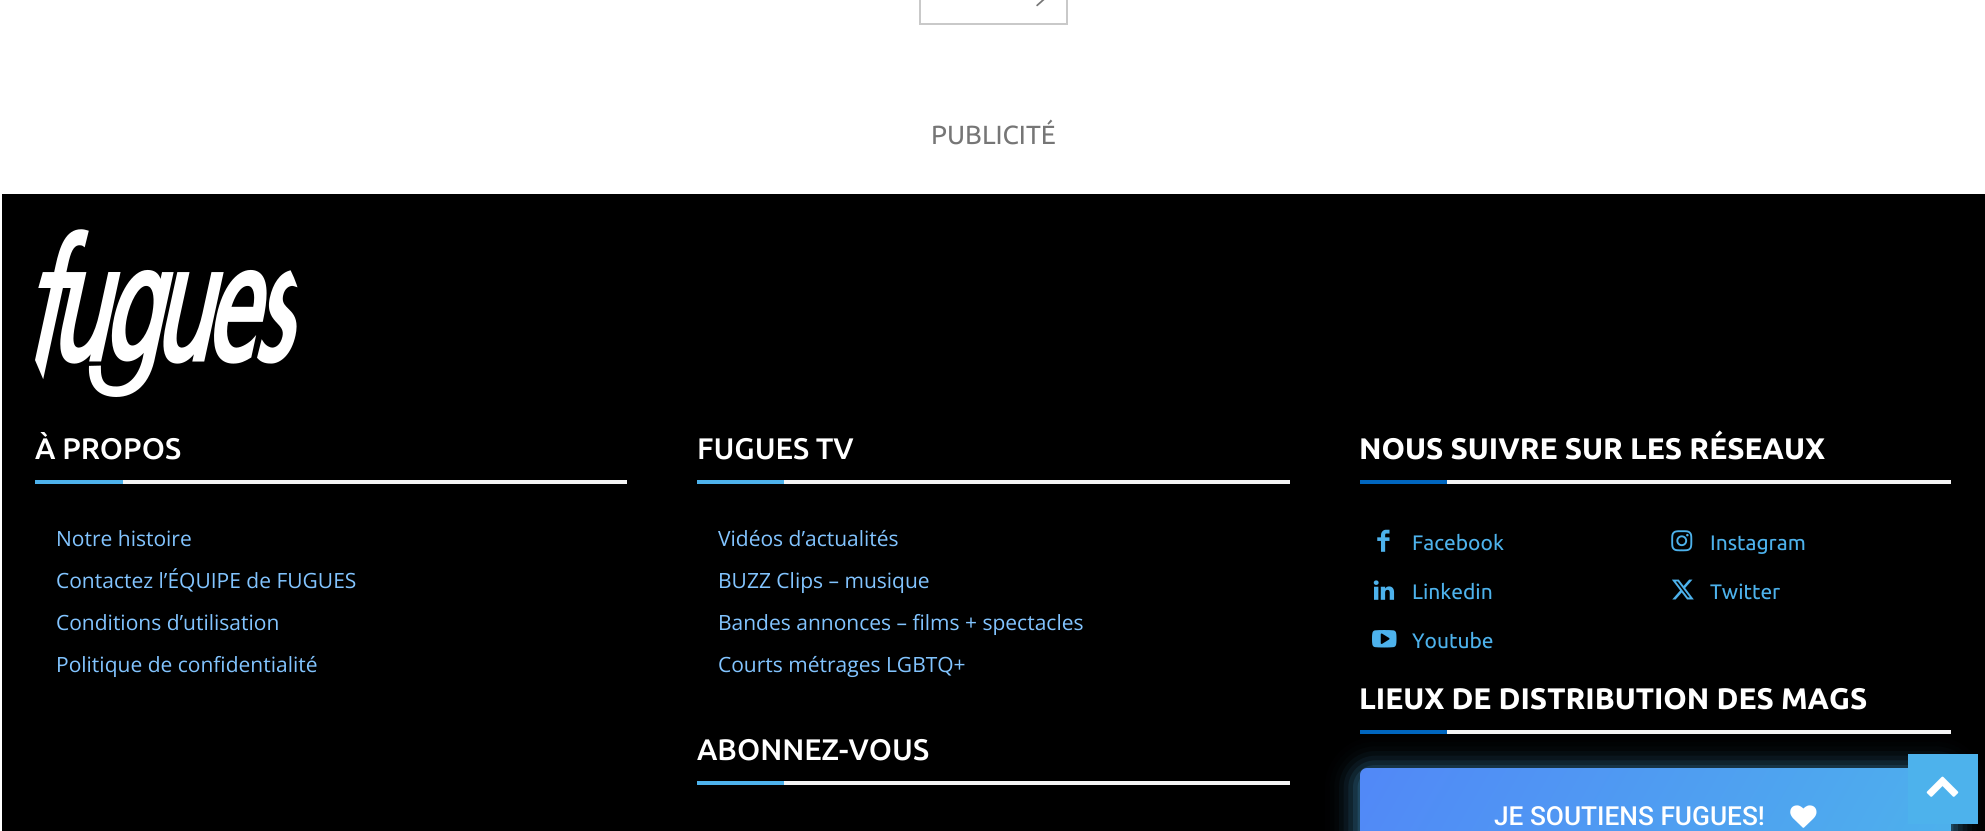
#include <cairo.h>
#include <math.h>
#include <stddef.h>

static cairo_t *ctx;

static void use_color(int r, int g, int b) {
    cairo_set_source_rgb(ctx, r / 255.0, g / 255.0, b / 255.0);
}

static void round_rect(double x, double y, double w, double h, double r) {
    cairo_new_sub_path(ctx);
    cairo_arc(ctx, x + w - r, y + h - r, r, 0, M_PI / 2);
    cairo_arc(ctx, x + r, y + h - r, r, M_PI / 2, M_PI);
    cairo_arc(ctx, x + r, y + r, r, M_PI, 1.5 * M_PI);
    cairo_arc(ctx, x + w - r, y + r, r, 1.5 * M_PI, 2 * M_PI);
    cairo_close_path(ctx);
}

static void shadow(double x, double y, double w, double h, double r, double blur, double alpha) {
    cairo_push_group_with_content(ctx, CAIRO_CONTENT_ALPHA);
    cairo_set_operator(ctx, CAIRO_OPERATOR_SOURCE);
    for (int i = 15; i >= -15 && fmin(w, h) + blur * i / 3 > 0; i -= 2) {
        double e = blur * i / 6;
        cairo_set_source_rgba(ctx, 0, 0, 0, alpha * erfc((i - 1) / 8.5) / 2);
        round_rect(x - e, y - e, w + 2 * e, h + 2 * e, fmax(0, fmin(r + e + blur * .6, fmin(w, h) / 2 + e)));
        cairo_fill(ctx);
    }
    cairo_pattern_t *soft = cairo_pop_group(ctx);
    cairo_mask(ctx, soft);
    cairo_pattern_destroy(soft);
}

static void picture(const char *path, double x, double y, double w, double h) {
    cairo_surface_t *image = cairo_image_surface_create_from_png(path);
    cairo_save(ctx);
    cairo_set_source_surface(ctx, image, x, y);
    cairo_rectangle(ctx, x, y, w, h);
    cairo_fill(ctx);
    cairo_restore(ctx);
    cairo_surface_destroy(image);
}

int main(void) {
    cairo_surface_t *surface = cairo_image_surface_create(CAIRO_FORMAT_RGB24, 1985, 831);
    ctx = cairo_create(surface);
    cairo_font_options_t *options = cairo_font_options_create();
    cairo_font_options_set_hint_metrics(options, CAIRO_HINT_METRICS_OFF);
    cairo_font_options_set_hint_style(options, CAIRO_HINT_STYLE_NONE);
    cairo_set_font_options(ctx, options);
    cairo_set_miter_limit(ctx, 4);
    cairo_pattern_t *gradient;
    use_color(255, 255, 255);
    cairo_paint(ctx);
    cairo_rectangle(ctx, 920, -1, 147, 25);
    use_color(201, 201, 201);
    cairo_stroke(ctx);
    picture("img1.png", 1036, 0, 9, 7);
    cairo_select_font_face(ctx, "Ubuntu", CAIRO_FONT_SLANT_NORMAL, CAIRO_FONT_WEIGHT_NORMAL);
    cairo_set_font_size(ctx, 26.25);
    use_color(118, 118, 118);
    cairo_move_to(ctx, 931, 144);
    cairo_show_text(ctx, "PUBLICITÉ");
    use_color(0, 0, 0);
    cairo_rectangle(ctx, 2, 194, 1983, 637);
    cairo_fill(ctx);
    picture("img2.png", 35, 229, 263, 168);
    cairo_save(ctx);
    cairo_rectangle(ctx, 35, 432, 592, 284);
    cairo_clip(ctx);
    cairo_select_font_face(ctx, "Ubuntu Medium", CAIRO_FONT_SLANT_NORMAL, CAIRO_FONT_WEIGHT_NORMAL);
    cairo_set_font_size(ctx, 29.75);
    use_color(255, 255, 255);
    cairo_move_to(ctx, 35, 459);
    cairo_show_text(ctx, "À PROPOS");
    cairo_restore(ctx);
    use_color(77, 178, 236);
    cairo_rectangle(ctx, 35, 480, 88, 4);
    cairo_fill(ctx);
    use_color(245, 245, 245);
    cairo_rectangle(ctx, 123, 480, 504, 4);
    cairo_fill(ctx);
    cairo_select_font_face(ctx, "Open Sans", CAIRO_FONT_SLANT_NORMAL, CAIRO_FONT_WEIGHT_NORMAL);
    cairo_set_font_size(ctx, 21);
    use_color(130, 196, 255);
    cairo_move_to(ctx, 56, 546);
    cairo_show_text(ctx, "Notre histoire");
    cairo_move_to(ctx, 56, 588);
    cairo_show_text(ctx, "Contactez l’ÉQUIPE de FUGUES");
    cairo_move_to(ctx, 56, 630);
    cairo_show_text(ctx, "Conditions d’utilisation");
    cairo_move_to(ctx, 56, 672);
    cairo_show_text(ctx, "Politique de confidentialité");
    cairo_select_font_face(ctx, "Ubuntu Medium", CAIRO_FONT_SLANT_NORMAL, CAIRO_FONT_WEIGHT_NORMAL);
    cairo_set_font_size(ctx, 29.75);
    use_color(255, 255, 255);
    cairo_move_to(ctx, 697, 459);
    cairo_show_text(ctx, "FUGUES TV");
    use_color(77, 178, 236);
    cairo_rectangle(ctx, 697, 480, 87, 4);
    cairo_fill(ctx);
    use_color(245, 245, 245);
    cairo_rectangle(ctx, 784, 480, 506, 4);
    cairo_fill(ctx);
    cairo_select_font_face(ctx, "Open Sans", CAIRO_FONT_SLANT_NORMAL, CAIRO_FONT_WEIGHT_NORMAL);
    cairo_set_font_size(ctx, 21);
    use_color(130, 196, 255);
    cairo_move_to(ctx, 718, 546);
    cairo_show_text(ctx, "Vidéos d’actualités");
    cairo_move_to(ctx, 718, 588);
    cairo_show_text(ctx, "BUZZ Clips – musique");
    cairo_move_to(ctx, 718, 630);
    cairo_show_text(ctx, "Bandes annonces – films + spectacles");
    cairo_move_to(ctx, 718, 672);
    cairo_show_text(ctx, "Courts métrages LGBTQ+");
    cairo_select_font_face(ctx, "Ubuntu Medium", CAIRO_FONT_SLANT_NORMAL, CAIRO_FONT_WEIGHT_NORMAL);
    cairo_set_font_size(ctx, 29.75);
    use_color(255, 255, 255);
    cairo_move_to(ctx, 697, 760);
    cairo_show_text(ctx, "ABONNEZ-VOUS");
    use_color(77, 178, 236);
    cairo_rectangle(ctx, 697, 781, 87, 4);
    cairo_fill(ctx);
    use_color(245, 245, 245);
    cairo_rectangle(ctx, 784, 781, 506, 4);
    cairo_fill(ctx);
    cairo_select_font_face(ctx, "Ubuntu", CAIRO_FONT_SLANT_NORMAL, CAIRO_FONT_WEIGHT_BOLD);
    use_color(255, 255, 255);
    cairo_move_to(ctx, 1359, 459);
    cairo_show_text(ctx, "NOUS SUIVRE SUR LES RÉSEAUX");
    use_color(0, 102, 191);
    cairo_rectangle(ctx, 1360, 480, 87, 4);
    cairo_fill(ctx);
    use_color(245, 245, 245);
    cairo_rectangle(ctx, 1447, 480, 504, 4);
    cairo_fill(ctx);
    picture("img3.png", 1377, 529, 13, 23);
    cairo_select_font_face(ctx, "Ubuntu", CAIRO_FONT_SLANT_NORMAL, CAIRO_FONT_WEIGHT_NORMAL);
    cairo_set_font_size(ctx, 21);
    use_color(77, 178, 236);
    cairo_move_to(ctx, 1412, 550);
    cairo_show_text(ctx, "Facebook");
    picture("img4.png", 1671, 530, 22, 22);
    cairo_move_to(ctx, 1710, 550);
    cairo_show_text(ctx, "Instagram");
    picture("img5.png", 1373, 580, 22, 20);
    cairo_move_to(ctx, 1412, 599);
    cairo_show_text(ctx, "Linkedin");
    picture("img6.png", 1672, 579, 22, 21);
    cairo_move_to(ctx, 1710, 599);
    cairo_show_text(ctx, "Twitter");
    picture("img7.png", 1372, 630, 25, 18);
    cairo_move_to(ctx, 1412, 648);
    cairo_show_text(ctx, "Youtube");
    cairo_select_font_face(ctx, "Ubuntu", CAIRO_FONT_SLANT_NORMAL, CAIRO_FONT_WEIGHT_BOLD);
    cairo_set_font_size(ctx, 29.75);
    use_color(255, 255, 255);
    cairo_move_to(ctx, 1359, 709);
    cairo_show_text(ctx, "LIEUX DE DISTRIBUTION DES MAGS");
    use_color(0, 102, 191);
    cairo_rectangle(ctx, 1360, 730, 87, 4);
    cairo_fill(ctx);
    use_color(245, 245, 245);
    cairo_rectangle(ctx, 1447, 730, 504, 4);
    cairo_fill(ctx);
    use_color(77, 178, 236);
    shadow(1360, 772, 591, 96, 7, 14, 0.8);
    gradient = cairo_pattern_create_linear(1898, 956, 1413, 676);
    cairo_pattern_add_color_stop_rgba(gradient, 0, 0.302, 0.698, 0.925, 1);
    cairo_pattern_add_color_stop_rgba(gradient, 1, 0.318, 0.533, 0.969, 1);
    cairo_set_source(ctx, gradient);
    cairo_pattern_destroy(gradient);
    round_rect(1360, 768, 591, 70, 7);
    cairo_fill(ctx);
    cairo_select_font_face(ctx, "Roboto Medium", CAIRO_FONT_SLANT_NORMAL, CAIRO_FONT_WEIGHT_NORMAL);
    cairo_set_font_size(ctx, 26.25);
    use_color(255, 255, 255);
    cairo_move_to(ctx, 1494, 825);
    cairo_show_text(ctx, "JE SOUTIENS FUGUES!");
    picture("img8.png", 1790, 805, 27, 23);
    use_color(77, 178, 236);
    cairo_rectangle(ctx, 1908, 754, 70, 70);
    cairo_fill(ctx);
    picture("img9.png", 1926, 776, 33, 21);
    cairo_surface_write_to_png(surface, "result.png");
    cairo_font_options_destroy(options);
    cairo_destroy(ctx);
    cairo_surface_destroy(surface);
    return 0;
}
